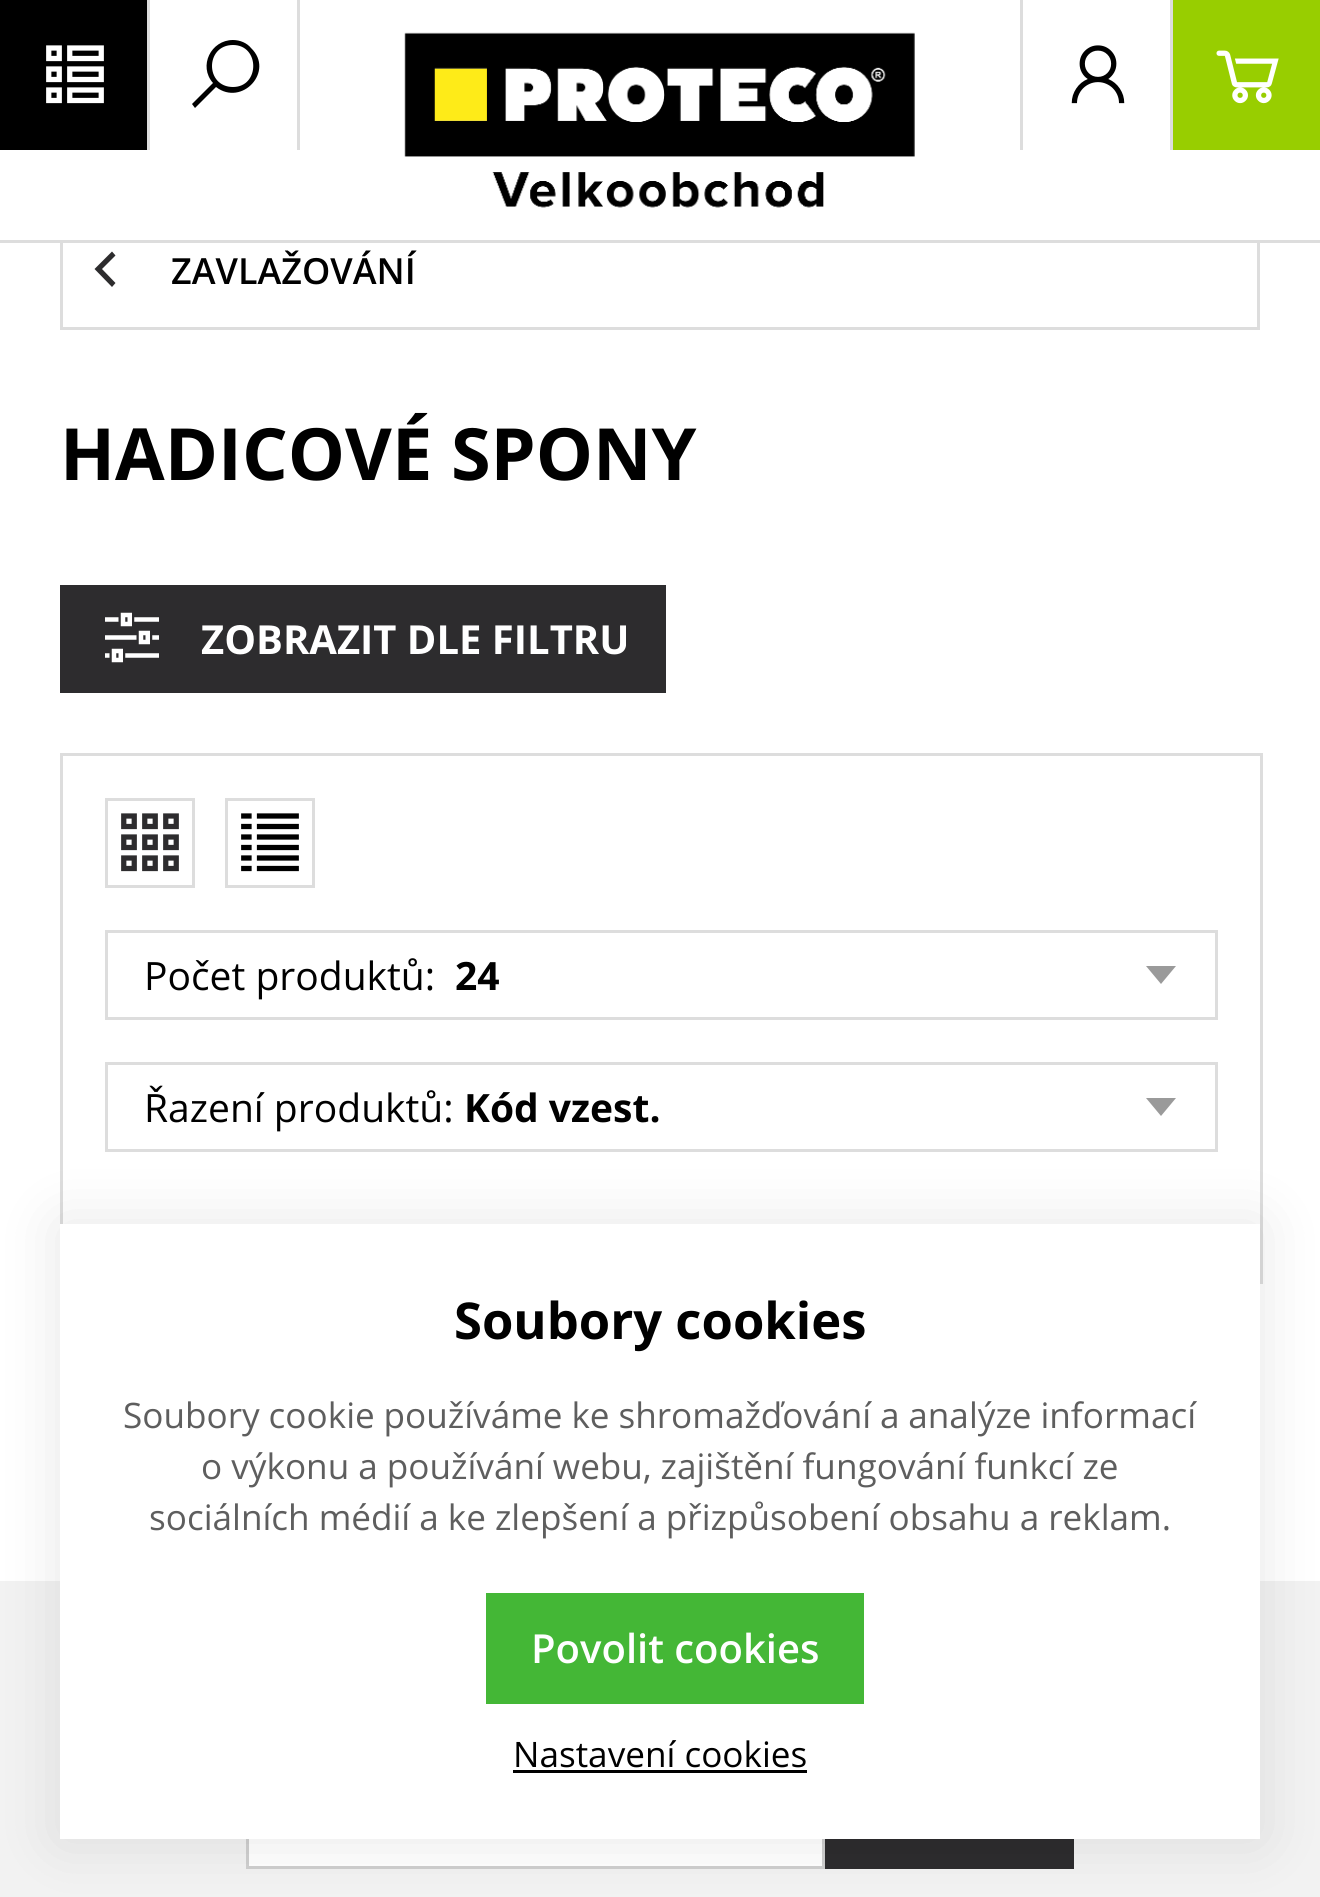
#include <cairo.h>
#include <math.h>
#include <stddef.h>

static cairo_t *ctx;

static void use_color(int r, int g, int b) {
    cairo_set_source_rgb(ctx, r / 255.0, g / 255.0, b / 255.0);
}

static void spaced_text(double x, double y, const char *s, double letter, double word) {
    cairo_move_to(ctx, x, y);
    while (*s) {
        char ch[5] = {0};
        int n = 0;
        do ch[n++] = *s++; while ((*s & 0xC0) == 0x80);
        cairo_show_text(ctx, ch);
        cairo_rel_move_to(ctx, letter + word * (*ch == ' '), 0);
    }
}

static void round_rect(double x, double y, double w, double h, double r) {
    cairo_new_sub_path(ctx);
    cairo_arc(ctx, x + w - r, y + h - r, r, 0, M_PI / 2);
    cairo_arc(ctx, x + r, y + h - r, r, M_PI / 2, M_PI);
    cairo_arc(ctx, x + r, y + r, r, M_PI, 1.5 * M_PI);
    cairo_arc(ctx, x + w - r, y + r, r, 1.5 * M_PI, 2 * M_PI);
    cairo_close_path(ctx);
}

static void shadow(double x, double y, double w, double h, double r, double blur, double alpha) {
    cairo_push_group_with_content(ctx, CAIRO_CONTENT_ALPHA);
    cairo_set_operator(ctx, CAIRO_OPERATOR_SOURCE);
    for (int i = 15; i >= -15 && fmin(w, h) + blur * i / 3 > 0; i -= 2) {
        double e = blur * i / 6;
        cairo_set_source_rgba(ctx, 0, 0, 0, alpha * erfc((i - 1) / 8.5) / 2);
        round_rect(x - e, y - e, w + 2 * e, h + 2 * e, fmax(0, fmin(r + e + blur * .6, fmin(w, h) / 2 + e)));
        cairo_fill(ctx);
    }
    cairo_pattern_t *soft = cairo_pop_group(ctx);
    cairo_mask(ctx, soft);
    cairo_pattern_destroy(soft);
}

static void picture(const char *path, double x, double y, double w, double h) {
    cairo_surface_t *image = cairo_image_surface_create_from_png(path);
    cairo_save(ctx);
    cairo_set_source_surface(ctx, image, x, y);
    cairo_rectangle(ctx, x, y, w, h);
    cairo_fill(ctx);
    cairo_restore(ctx);
    cairo_surface_destroy(image);
}

int main(void) {
    cairo_surface_t *surface = cairo_image_surface_create(CAIRO_FORMAT_RGB24, 1320, 1897);
    ctx = cairo_create(surface);
    cairo_font_options_t *options = cairo_font_options_create();
    cairo_font_options_set_hint_metrics(options, CAIRO_HINT_METRICS_OFF);
    cairo_font_options_set_hint_style(options, CAIRO_HINT_STYLE_NONE);
    cairo_set_font_options(ctx, options);
    cairo_set_miter_limit(ctx, 4);
    use_color(255, 255, 255);
    cairo_paint(ctx);
    cairo_rectangle(ctx, 61.5, 211.5, 1197, 117);
    use_color(221, 221, 221);
    cairo_set_line_width(ctx, 3);
    cairo_stroke(ctx);
    use_color(255, 255, 255);
    cairo_rectangle(ctx, 60, 210, 1200, 30);
    cairo_fill(ctx);
    use_color(221, 221, 221);
    cairo_rectangle(ctx, 0, 240, 1320, 3);
    cairo_fill(ctx);
    use_color(0, 0, 0);
    cairo_rectangle(ctx, 0, 0, 147, 150);
    cairo_fill(ctx);
    use_color(221, 221, 221);
    cairo_rectangle(ctx, 147, 0, 3, 150);
    cairo_fill(ctx);
    picture("img1.png", 46, 45, 58, 59);
    cairo_rectangle(ctx, 297, 0, 3, 150);
    cairo_fill(ctx);
    use_color(0, 0, 0);
    cairo_new_path(ctx);
    cairo_move_to(ctx, 233, 40);
    cairo_curve_to(ctx, 211, 40, 198, 66, 213, 83);
    cairo_line_to(ctx, 192, 104);
    cairo_line_to(ctx, 195, 108);
    cairo_line_to(ctx, 216, 87);
    cairo_curve_to(ctx, 242, 107, 275, 71, 251, 48);
    cairo_curve_to(ctx, 247, 43, 240, 40, 233, 40);
    cairo_close_path(ctx);
    cairo_move_to(ctx, 233, 87);
    cairo_curve_to(ctx, 205, 87, 205, 45, 233, 45);
    cairo_curve_to(ctx, 260, 45, 260, 87, 233, 87);
    cairo_close_path(ctx);
    cairo_fill(ctx);
    picture("img2.png", 404, 32, 511, 176);
    use_color(221, 221, 221);
    cairo_rectangle(ctx, 1020, 0, 3, 150);
    cairo_fill(ctx);
    picture("img3.png", 1071, 45, 54, 59);
    use_color(152, 206, 0);
    cairo_rectangle(ctx, 1173, 0, 147, 150);
    cairo_fill(ctx);
    use_color(221, 221, 221);
    cairo_rectangle(ctx, 1170, 0, 3, 150);
    cairo_fill(ctx);
    picture("img4.png", 1216, 50, 63, 54);
    use_color(45, 44, 46);
    cairo_new_path(ctx);
    cairo_move_to(ctx, 112, 251.5);
    cairo_line_to(ctx, 94.5, 269);
    cairo_line_to(ctx, 112, 287);
    cairo_line_to(ctx, 115.5, 283);
    cairo_line_to(ctx, 102, 269);
    cairo_line_to(ctx, 115.5, 255.5);
    cairo_close_path(ctx);
    cairo_fill(ctx);
    cairo_select_font_face(ctx, "Open Sans SemiBold", CAIRO_FONT_SLANT_NORMAL, CAIRO_FONT_WEIGHT_NORMAL);
    cairo_set_font_size(ctx, 36);
    use_color(0, 0, 0);
    cairo_move_to(ctx, 171, 284);
    cairo_show_text(ctx, "ZAVLAŽOVÁNÍ");
    cairo_select_font_face(ctx, "Open Sans", CAIRO_FONT_SLANT_NORMAL, CAIRO_FONT_WEIGHT_BOLD);
    cairo_set_font_size(ctx, 72);
    cairo_move_to(ctx, 60, 480);
    cairo_show_text(ctx, "HADICOVÉ SPONY");
    use_color(45, 44, 46);
    cairo_rectangle(ctx, 60, 585, 606, 108);
    cairo_fill(ctx);
    picture("img5.png", 105, 612, 54, 51);
    cairo_set_font_size(ctx, 40);
    use_color(255, 255, 255);
    cairo_move_to(ctx, 201, 654);
    cairo_show_text(ctx, "ZOBRAZIT DLE FILTRU");
    use_color(221, 221, 221);
    cairo_rectangle(ctx, 60, 753, 1203, 3);
    cairo_fill(ctx);
    cairo_rectangle(ctx, 1260, 753, 3, 531);
    cairo_fill(ctx);
    cairo_rectangle(ctx, 60, 753, 3, 471);
    cairo_fill(ctx);
    cairo_rectangle(ctx, 106.5, 799.5, 87, 87);
    cairo_stroke(ctx);
    picture("img6.png", 121, 813, 58, 59);
    cairo_rectangle(ctx, 226.5, 799.5, 87, 87);
    cairo_stroke(ctx);
    picture("img7.png", 241, 813, 58, 59);
    use_color(154, 154, 154);
    cairo_new_path(ctx);
    cairo_move_to(ctx, 1161, 984);
    cairo_line_to(ctx, 1146, 966);
    cairo_line_to(ctx, 1176, 966);
    cairo_close_path(ctx);
    cairo_fill(ctx);
    cairo_rectangle(ctx, 106.5, 931.5, 1110, 87);
    use_color(221, 221, 221);
    cairo_stroke(ctx);
    cairo_select_font_face(ctx, "Open Sans", CAIRO_FONT_SLANT_NORMAL, CAIRO_FONT_WEIGHT_NORMAL);
    cairo_set_font_size(ctx, 39);
    use_color(0, 0, 0);
    cairo_move_to(ctx, 144, 990);
    cairo_show_text(ctx, "Počet produktů:");
    cairo_select_font_face(ctx, "Open Sans", CAIRO_FONT_SLANT_NORMAL, CAIRO_FONT_WEIGHT_BOLD);
    cairo_move_to(ctx, 455, 990);
    cairo_show_text(ctx, "24");
    use_color(154, 154, 154);
    cairo_new_path(ctx);
    cairo_move_to(ctx, 1161, 1116);
    cairo_line_to(ctx, 1146, 1098);
    cairo_line_to(ctx, 1176, 1098);
    cairo_close_path(ctx);
    cairo_fill(ctx);
    cairo_rectangle(ctx, 106.5, 1063.5, 1110, 87);
    use_color(221, 221, 221);
    cairo_stroke(ctx);
    cairo_select_font_face(ctx, "Open Sans", CAIRO_FONT_SLANT_NORMAL, CAIRO_FONT_WEIGHT_NORMAL);
    use_color(0, 0, 0);
    cairo_move_to(ctx, 144, 1122);
    cairo_show_text(ctx, "Řazení produktů:");
    cairo_select_font_face(ctx, "Open Sans", CAIRO_FONT_SLANT_NORMAL, CAIRO_FONT_WEIGHT_BOLD);
    cairo_move_to(ctx, 464, 1122);
    cairo_show_text(ctx, "Kód vzest.");
    use_color(242, 242, 242);
    cairo_rectangle(ctx, 0, 1581, 1320, 316);
    cairo_fill(ctx);
    use_color(255, 255, 255);
    cairo_rectangle(ctx, 249, 1839, 573, 27);
    cairo_fill(ctx);
    cairo_rectangle(ctx, 247.5, 1780.5, 576, 87);
    use_color(206, 206, 206);
    cairo_stroke(ctx);
    use_color(45, 44, 46);
    cairo_rectangle(ctx, 825, 1839, 249, 30);
    cairo_fill(ctx);
    use_color(0, 0, 0);
    shadow(60, 1224, 1200, 615, 0, 30, 0.1);
    use_color(255, 255, 255);
    cairo_rectangle(ctx, 60, 1224, 1200, 615);
    cairo_fill(ctx);
    cairo_set_font_size(ctx, 50.75);
    use_color(0, 0, 0);
    cairo_move_to(ctx, 454, 1339);
    cairo_show_text(ctx, "Soubory cookies");
    cairo_select_font_face(ctx, "Open Sans", CAIRO_FONT_SLANT_NORMAL, CAIRO_FONT_WEIGHT_NORMAL);
    cairo_set_font_size(ctx, 35.1);
    use_color(94, 94, 94);
    spaced_text(123, 1428, "Soubory cookie používáme ke shromažďování a analýze informací", 0, -0.25);
    spaced_text(201, 1479, "o výkonu a používání webu, zajištění fungování funkcí ze", 0, -0.1);
    spaced_text(149, 1530, "sociálních médií a ke zlepšení a přizpůsobení obsahu a reklam.", 0, -0.1);
    use_color(68, 183, 54);
    cairo_rectangle(ctx, 486, 1593, 378, 111);
    cairo_fill(ctx);
    cairo_select_font_face(ctx, "Open Sans SemiBold", CAIRO_FONT_SLANT_NORMAL, CAIRO_FONT_WEIGHT_NORMAL);
    cairo_set_font_size(ctx, 40);
    use_color(255, 255, 255);
    cairo_move_to(ctx, 531, 1663);
    cairo_show_text(ctx, "Povolit cookies");
    cairo_select_font_face(ctx, "Open Sans", CAIRO_FONT_SLANT_NORMAL, CAIRO_FONT_WEIGHT_NORMAL);
    cairo_set_font_size(ctx, 35.1);
    use_color(0, 0, 0);
    cairo_move_to(ctx, 513, 1767);
    cairo_show_text(ctx, "Nastavení cookies");
    cairo_rectangle(ctx, 513, 1770, 294, 3);
    cairo_fill(ctx);
    cairo_surface_write_to_png(surface, "result.png");
    cairo_font_options_destroy(options);
    cairo_destroy(ctx);
    cairo_surface_destroy(surface);
    return 0;
}
